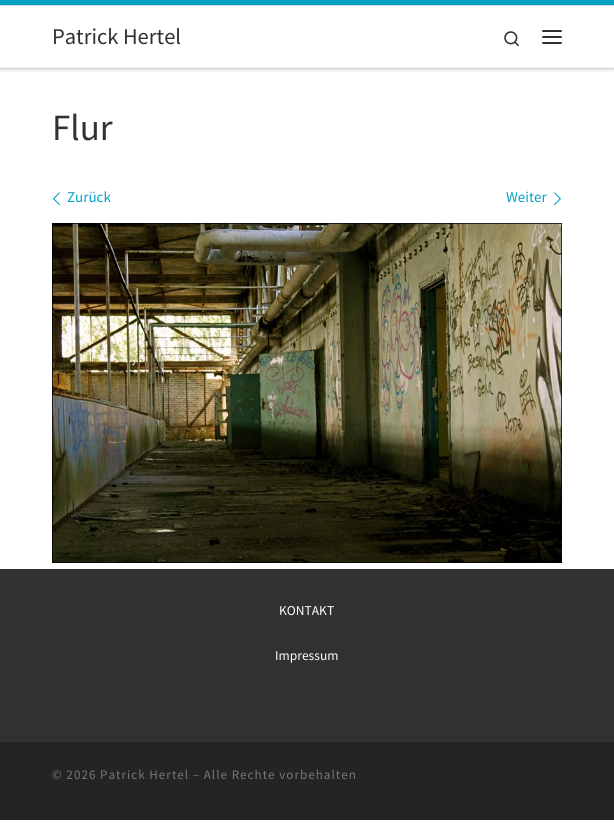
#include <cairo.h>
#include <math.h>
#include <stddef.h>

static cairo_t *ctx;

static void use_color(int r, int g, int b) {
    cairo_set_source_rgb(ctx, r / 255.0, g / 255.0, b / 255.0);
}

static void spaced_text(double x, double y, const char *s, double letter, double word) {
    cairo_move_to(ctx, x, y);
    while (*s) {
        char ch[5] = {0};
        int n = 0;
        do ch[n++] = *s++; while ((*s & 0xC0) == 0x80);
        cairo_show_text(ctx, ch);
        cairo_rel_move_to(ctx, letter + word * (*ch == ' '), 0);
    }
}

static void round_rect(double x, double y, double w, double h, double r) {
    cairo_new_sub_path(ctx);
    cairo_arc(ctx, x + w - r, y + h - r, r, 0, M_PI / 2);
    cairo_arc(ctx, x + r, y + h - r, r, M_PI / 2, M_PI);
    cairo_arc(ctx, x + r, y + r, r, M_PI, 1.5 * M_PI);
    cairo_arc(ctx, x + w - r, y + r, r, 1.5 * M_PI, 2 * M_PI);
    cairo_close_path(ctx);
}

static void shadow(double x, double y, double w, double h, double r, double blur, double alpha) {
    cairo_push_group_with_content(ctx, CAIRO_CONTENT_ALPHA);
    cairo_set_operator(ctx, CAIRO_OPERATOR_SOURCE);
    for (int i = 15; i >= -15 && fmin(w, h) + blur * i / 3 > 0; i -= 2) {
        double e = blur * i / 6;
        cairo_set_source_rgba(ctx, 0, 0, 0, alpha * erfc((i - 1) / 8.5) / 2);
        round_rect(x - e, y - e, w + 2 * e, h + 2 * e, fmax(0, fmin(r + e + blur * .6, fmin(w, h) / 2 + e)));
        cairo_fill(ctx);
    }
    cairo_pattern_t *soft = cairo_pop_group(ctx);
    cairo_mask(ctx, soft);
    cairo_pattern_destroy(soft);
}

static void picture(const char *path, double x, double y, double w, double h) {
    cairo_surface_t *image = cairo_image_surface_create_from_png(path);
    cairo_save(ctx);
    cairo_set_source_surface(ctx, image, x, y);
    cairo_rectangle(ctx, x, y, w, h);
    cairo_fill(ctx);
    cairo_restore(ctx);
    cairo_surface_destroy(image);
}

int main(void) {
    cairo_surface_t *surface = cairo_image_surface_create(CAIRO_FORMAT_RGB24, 614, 825);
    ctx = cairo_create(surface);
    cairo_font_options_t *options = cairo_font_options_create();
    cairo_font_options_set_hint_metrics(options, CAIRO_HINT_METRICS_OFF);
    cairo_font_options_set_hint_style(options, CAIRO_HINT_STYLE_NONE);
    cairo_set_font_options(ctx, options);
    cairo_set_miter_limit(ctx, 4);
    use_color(255, 255, 255);
    cairo_paint(ctx);
    cairo_save(ctx);
    cairo_rectangle(ctx, 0, 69, 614, 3);
    cairo_clip(ctx);
    use_color(102, 102, 102);
    shadow(0, 2, 614, 69, 0, 1, 0.08);
    cairo_restore(ctx);
    use_color(0, 163, 200);
    cairo_rectangle(ctx, 0, 0, 614, 5);
    cairo_fill(ctx);
    use_color(236, 236, 236);
    cairo_rectangle(ctx, 0, 5, 614, 1);
    cairo_fill(ctx);
    use_color(239, 239, 239);
    cairo_rectangle(ctx, 0, 68, 614, 1);
    cairo_fill(ctx);
    cairo_save(ctx);
    cairo_set_fill_rule(ctx, CAIRO_FILL_RULE_EVEN_ODD);
    cairo_new_path(ctx);
    cairo_move_to(ctx, 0, 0);
    cairo_line_to(ctx, 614, 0);
    cairo_line_to(ctx, 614, 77);
    cairo_line_to(ctx, 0, 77);
    cairo_close_path(ctx);
    cairo_move_to(ctx, 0, 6);
    cairo_line_to(ctx, 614, 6);
    cairo_line_to(ctx, 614, 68);
    cairo_line_to(ctx, 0, 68);
    cairo_close_path(ctx);
    cairo_clip(ctx);
    use_color(0, 0, 0);
    shadow(0, 6, 614, 62, 0, 2.5, 0.2);
    cairo_restore(ctx);
    cairo_select_font_face(ctx, "Source Sans Pro", CAIRO_FONT_SLANT_NORMAL, CAIRO_FONT_WEIGHT_NORMAL);
    cairo_set_font_size(ctx, 22.5);
    use_color(48, 49, 51);
    cairo_move_to(ctx, 52, 44);
    cairo_show_text(ctx, "Patrick Hertel");
    picture("img1.png", 504, 31, 15, 16);
    use_color(49, 49, 49);
    round_rect(542, 30, 20, 2, 1);
    cairo_fill(ctx);
    round_rect(542, 36, 20, 2, 1);
    cairo_fill(ctx);
    round_rect(542, 42, 20, 2, 1);
    cairo_fill(ctx);
    use_color(240, 240, 240);
    cairo_rectangle(ctx, 0, 67, 614, 1);
    cairo_fill(ctx);
    cairo_set_font_size(ctx, 37);
    use_color(48, 49, 51);
    cairo_move_to(ctx, 52, 140);
    cairo_show_text(ctx, "Flur");
    picture("img2.png", 53, 192, 7, 14);
    cairo_set_font_size(ctx, 15);
    use_color(0, 163, 200);
    cairo_move_to(ctx, 67, 202);
    cairo_show_text(ctx, "Zurück");
    cairo_move_to(ctx, 506, 202);
    cairo_show_text(ctx, "Weiter");
    picture("img3.png", 554, 192, 7, 14);
    picture("img4.png", 52, 223, 510, 340);
    use_color(49, 49, 49);
    cairo_rectangle(ctx, 0, 569, 614, 173);
    cairo_fill(ctx);
    cairo_set_font_size(ctx, 13.5);
    use_color(255, 255, 255);
    cairo_move_to(ctx, 279, 615);
    cairo_show_text(ctx, "KONTAKT");
    cairo_move_to(ctx, 275, 660);
    cairo_show_text(ctx, "Impressum");
    use_color(36, 36, 36);
    cairo_rectangle(ctx, 0, 742, 614, 78);
    cairo_fill(ctx);
    cairo_set_font_size(ctx, 13.1);
    use_color(119, 119, 119);
    spaced_text(52, 779, "© 2026 Patrick Hertel – Alle Rechte vorbehalten", 1, 0);
    cairo_surface_write_to_png(surface, "result.png");
    cairo_font_options_destroy(options);
    cairo_destroy(ctx);
    cairo_surface_destroy(surface);
    return 0;
}
